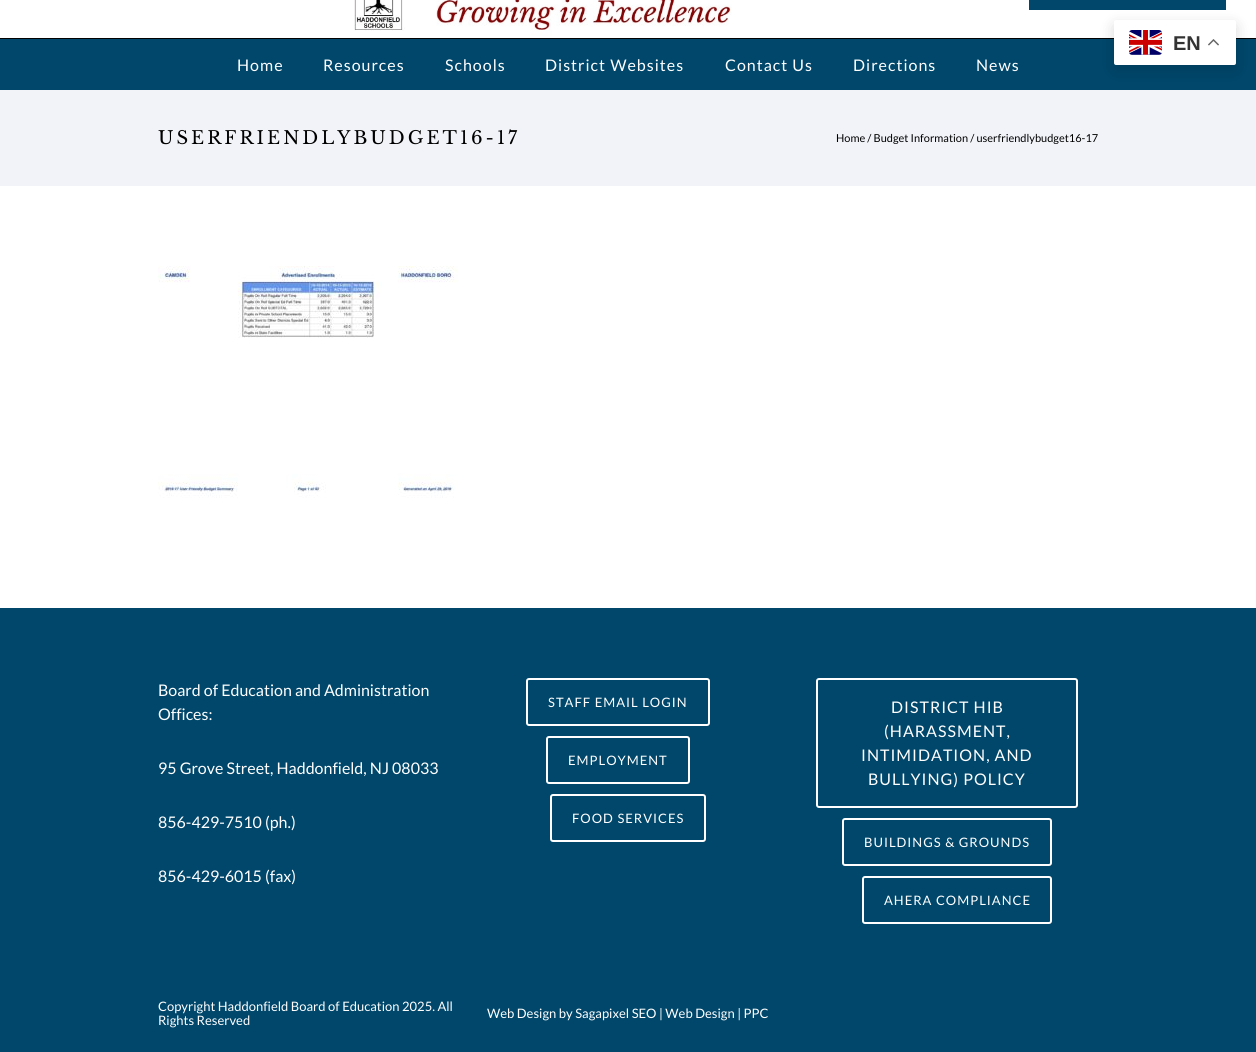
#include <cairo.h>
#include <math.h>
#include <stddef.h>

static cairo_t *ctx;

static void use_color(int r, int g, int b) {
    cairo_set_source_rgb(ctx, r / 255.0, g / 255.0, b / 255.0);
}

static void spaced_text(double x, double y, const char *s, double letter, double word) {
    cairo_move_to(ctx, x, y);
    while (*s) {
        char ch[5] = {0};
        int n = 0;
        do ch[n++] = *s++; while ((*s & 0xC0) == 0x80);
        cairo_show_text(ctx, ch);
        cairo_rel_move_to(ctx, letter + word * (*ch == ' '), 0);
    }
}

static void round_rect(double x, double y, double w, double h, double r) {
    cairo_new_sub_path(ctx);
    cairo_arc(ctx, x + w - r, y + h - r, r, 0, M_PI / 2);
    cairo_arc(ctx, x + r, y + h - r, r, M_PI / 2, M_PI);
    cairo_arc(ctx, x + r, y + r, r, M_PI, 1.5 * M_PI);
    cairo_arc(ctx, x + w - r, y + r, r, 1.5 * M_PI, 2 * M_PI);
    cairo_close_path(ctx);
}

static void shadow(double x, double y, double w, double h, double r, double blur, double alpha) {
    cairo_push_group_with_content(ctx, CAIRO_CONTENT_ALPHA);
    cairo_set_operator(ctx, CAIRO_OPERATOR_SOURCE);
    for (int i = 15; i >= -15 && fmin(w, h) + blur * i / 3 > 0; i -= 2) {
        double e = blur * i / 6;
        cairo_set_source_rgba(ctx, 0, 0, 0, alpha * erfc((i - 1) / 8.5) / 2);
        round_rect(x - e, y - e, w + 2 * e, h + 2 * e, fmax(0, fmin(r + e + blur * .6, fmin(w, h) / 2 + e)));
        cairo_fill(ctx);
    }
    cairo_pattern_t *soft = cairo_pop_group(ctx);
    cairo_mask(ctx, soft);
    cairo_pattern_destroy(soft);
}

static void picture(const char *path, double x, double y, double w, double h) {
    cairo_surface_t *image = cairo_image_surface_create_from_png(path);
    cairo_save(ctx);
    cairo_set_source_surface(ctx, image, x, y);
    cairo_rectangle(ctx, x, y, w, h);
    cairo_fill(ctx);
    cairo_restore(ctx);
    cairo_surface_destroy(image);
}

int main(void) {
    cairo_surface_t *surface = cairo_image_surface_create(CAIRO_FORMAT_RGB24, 1256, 1052);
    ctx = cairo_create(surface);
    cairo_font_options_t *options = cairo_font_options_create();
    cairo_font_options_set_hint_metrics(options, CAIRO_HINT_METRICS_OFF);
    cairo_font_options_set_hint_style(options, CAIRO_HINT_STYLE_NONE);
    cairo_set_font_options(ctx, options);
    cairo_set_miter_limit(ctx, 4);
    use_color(255, 255, 255);
    cairo_paint(ctx);
    use_color(0, 71, 107);
    cairo_rectangle(ctx, 1029, 0, 197, 10);
    cairo_fill(ctx);
    use_color(2, 2, 2);
    cairo_rectangle(ctx, 0, 38, 1256, 1);
    cairo_fill(ctx);
    use_color(0, 71, 107);
    cairo_rectangle(ctx, 0, 39, 1256, 51);
    cairo_fill(ctx);
    use_color(242, 243, 248);
    cairo_rectangle(ctx, 0, 90, 1256, 96);
    cairo_fill(ctx);
    use_color(0, 0, 0);
    shadow(1114, 25, 122, 45, 2, 7.5, 0.15);
    use_color(255, 255, 255);
    round_rect(1114, 20, 122, 45, 2);
    cairo_fill(ctx);
    picture("img1.png", 1129, 30, 33, 25);
    cairo_select_font_face(ctx, "Liberation Sans", CAIRO_FONT_SLANT_NORMAL, CAIRO_FONT_WEIGHT_BOLD);
    cairo_set_font_size(ctx, 20);
    use_color(51, 51, 51);
    cairo_move_to(ctx, 1173, 50);
    cairo_show_text(ctx, "EN");
    picture("img2.png", 1208, 39, 11, 7);
    picture("img3.png", 354, 0, 378, 36);
    cairo_select_font_face(ctx, "Lato", CAIRO_FONT_SLANT_NORMAL, CAIRO_FONT_WEIGHT_NORMAL);
    cairo_set_font_size(ctx, 16);
    use_color(255, 255, 255);
    spaced_text(237, 71, "Home", 1, 0);
    spaced_text(323, 71, "Resources", 1, 0);
    spaced_text(445, 71, "Schools", 1, 0);
    spaced_text(545, 71, "District Websites", 1, 0);
    spaced_text(725, 71, "Contact Us", 1, 0);
    spaced_text(853, 71, "Directions", 1, 0);
    spaced_text(976, 71, "News", 1, 0);
    cairo_select_font_face(ctx, "Libre Baskerville", CAIRO_FONT_SLANT_NORMAL, CAIRO_FONT_WEIGHT_NORMAL);
    cairo_set_font_size(ctx, 18);
    use_color(0, 0, 0);
    spaced_text(158, 144, "USERFRIENDLYBUDGET16-17", 3, 0);
    cairo_select_font_face(ctx, "Lato", CAIRO_FONT_SLANT_NORMAL, CAIRO_FONT_WEIGHT_NORMAL);
    cairo_set_font_size(ctx, 11);
    cairo_move_to(ctx, 836, 142);
    cairo_show_text(ctx, "Home / Budget Information / userfriendlybudget16-17");
    picture("img4.png", 158, 266, 300, 232);
    use_color(0, 71, 107);
    cairo_rectangle(ctx, 0, 608, 1256, 444);
    cairo_fill(ctx);
    cairo_set_font_size(ctx, 16);
    use_color(255, 255, 255);
    cairo_move_to(ctx, 158, 696);
    cairo_show_text(ctx, "Board of Education and Administration");
    cairo_move_to(ctx, 158, 720);
    cairo_show_text(ctx, "Offices:");
    cairo_move_to(ctx, 158, 774);
    cairo_show_text(ctx, "95 Grove Street, Haddonfield, NJ 08033");
    cairo_move_to(ctx, 158, 828);
    cairo_show_text(ctx, "856-429-7510 (ph.)");
    cairo_move_to(ctx, 158, 882);
    cairo_show_text(ctx, "856-429-6015 (fax)");
    round_rect(527, 679, 182, 46, 2);
    cairo_stroke(ctx);
    cairo_set_font_size(ctx, 13);
    spaced_text(548, 707, "STAFF EMAIL LOGIN", 1, 0);
    round_rect(547, 737, 142, 46, 2);
    cairo_stroke(ctx);
    spaced_text(568, 765, "EMPLOYMENT", 1, 0);
    round_rect(551, 795, 154, 46, 2);
    cairo_stroke(ctx);
    spaced_text(572, 823, "FOOD SERVICES", 1, 0);
    round_rect(817, 679, 260, 128, 2);
    cairo_stroke(ctx);
    cairo_set_font_size(ctx, 16);
    spaced_text(891, 713, "DISTRICT HIB", 1, 0);
    spaced_text(884, 737, "(HARASSMENT,", 1, 0);
    spaced_text(861, 761, "INTIMIDATION, AND", 1, 0);
    spaced_text(868, 785, "BULLYING) POLICY", 1, 0);
    round_rect(843, 819, 208, 46, 2);
    cairo_stroke(ctx);
    cairo_set_font_size(ctx, 13);
    spaced_text(864, 847, "BUILDINGS & GROUNDS", 1, 0);
    round_rect(863, 877, 188, 46, 2);
    cairo_stroke(ctx);
    spaced_text(884, 905, "AHERA COMPLIANCE", 1, 0);
    cairo_move_to(ctx, 158, 1011);
    cairo_show_text(ctx, "Copyright Haddonfield Board of Education 2025. All");
    cairo_move_to(ctx, 158, 1025);
    cairo_show_text(ctx, "Rights Reserved");
    cairo_move_to(ctx, 487, 1018);
    cairo_show_text(ctx, "Web Design by Sagapixel SEO | Web Design | PPC");
    cairo_surface_write_to_png(surface, "result.png");
    cairo_font_options_destroy(options);
    cairo_destroy(ctx);
    cairo_surface_destroy(surface);
    return 0;
}
